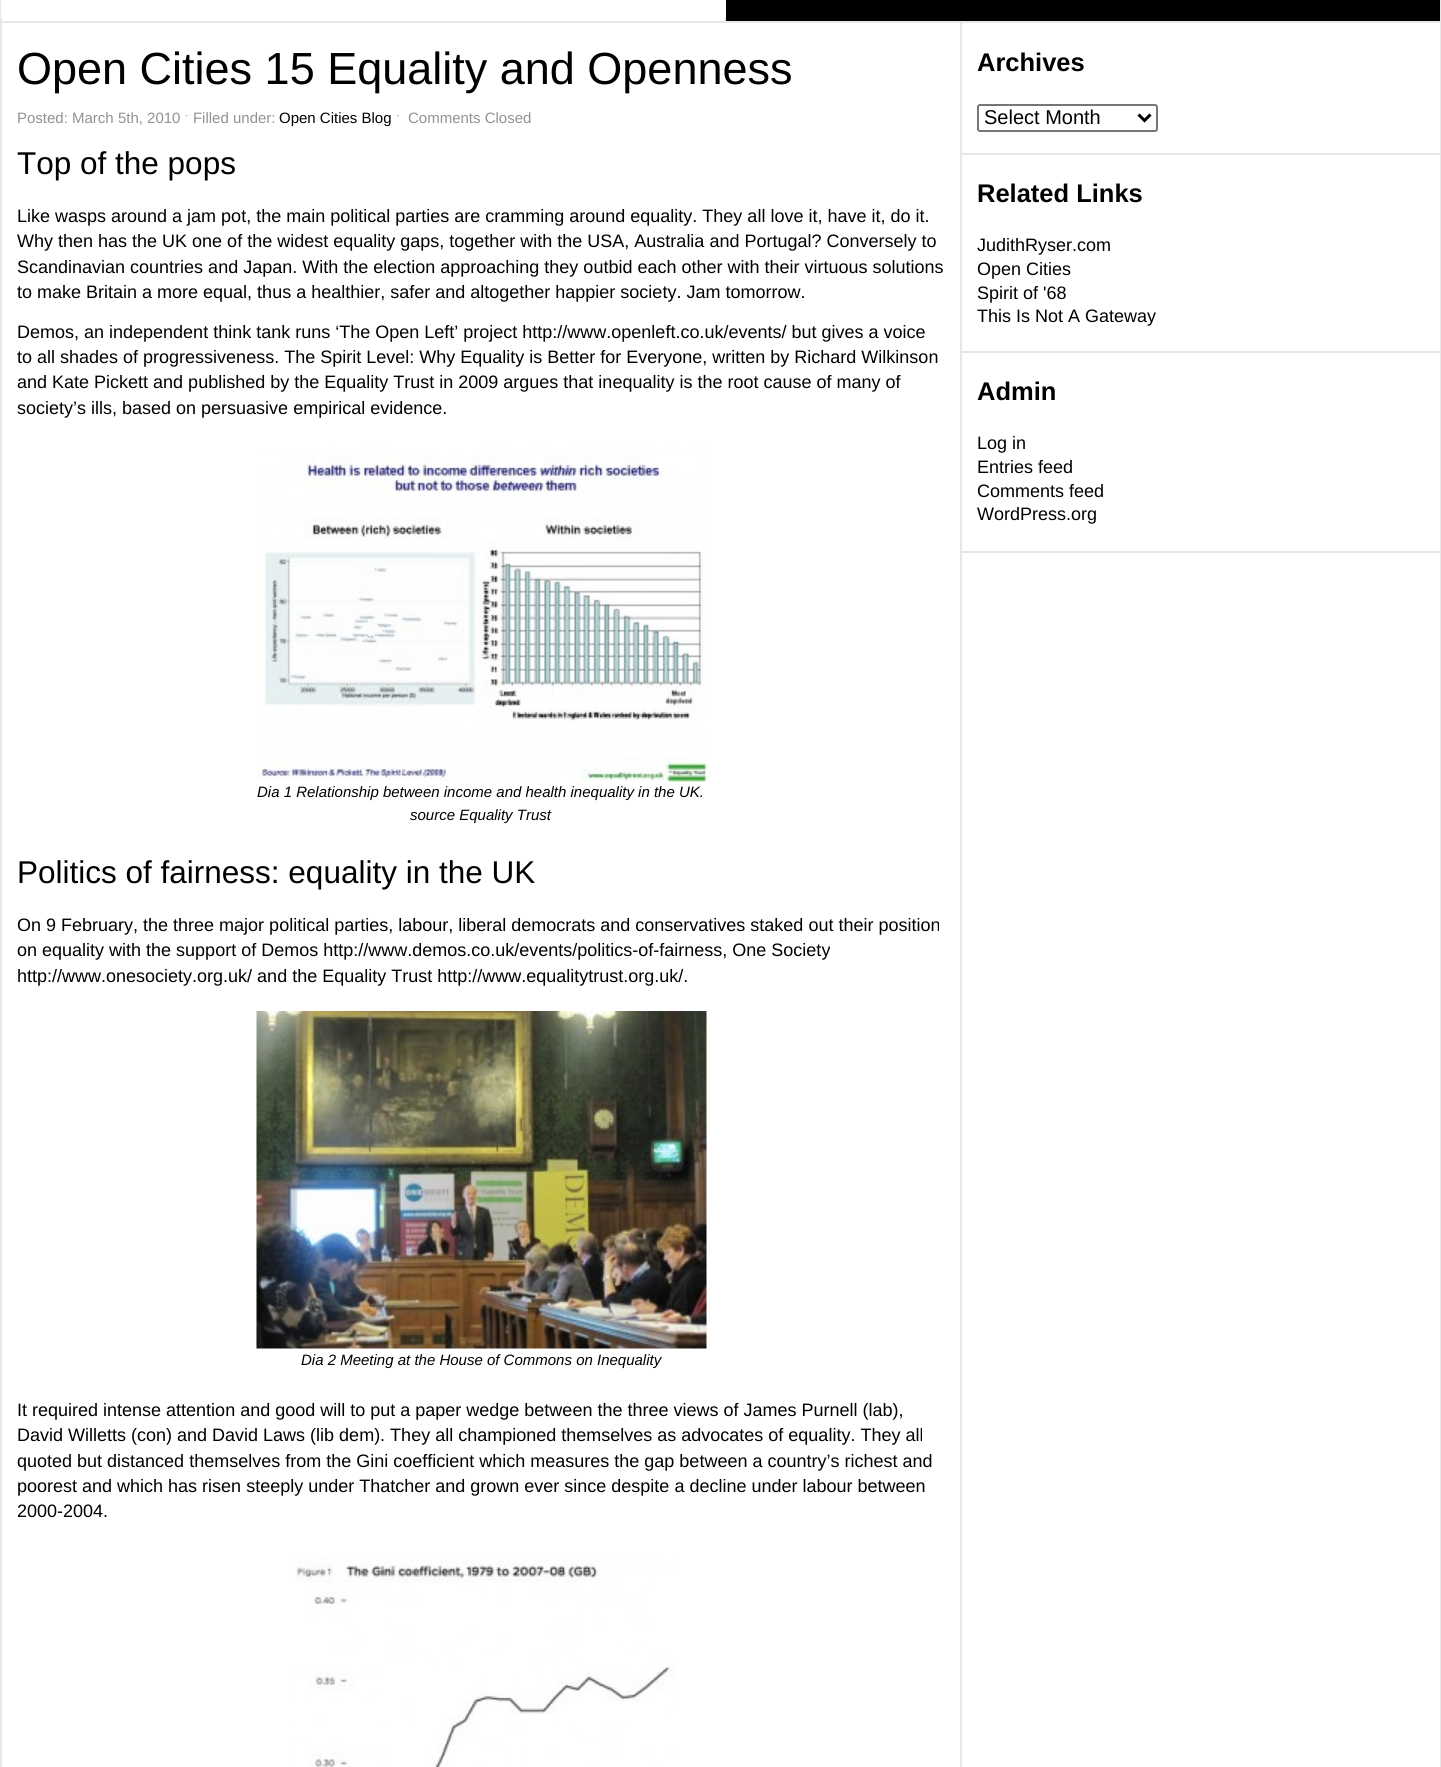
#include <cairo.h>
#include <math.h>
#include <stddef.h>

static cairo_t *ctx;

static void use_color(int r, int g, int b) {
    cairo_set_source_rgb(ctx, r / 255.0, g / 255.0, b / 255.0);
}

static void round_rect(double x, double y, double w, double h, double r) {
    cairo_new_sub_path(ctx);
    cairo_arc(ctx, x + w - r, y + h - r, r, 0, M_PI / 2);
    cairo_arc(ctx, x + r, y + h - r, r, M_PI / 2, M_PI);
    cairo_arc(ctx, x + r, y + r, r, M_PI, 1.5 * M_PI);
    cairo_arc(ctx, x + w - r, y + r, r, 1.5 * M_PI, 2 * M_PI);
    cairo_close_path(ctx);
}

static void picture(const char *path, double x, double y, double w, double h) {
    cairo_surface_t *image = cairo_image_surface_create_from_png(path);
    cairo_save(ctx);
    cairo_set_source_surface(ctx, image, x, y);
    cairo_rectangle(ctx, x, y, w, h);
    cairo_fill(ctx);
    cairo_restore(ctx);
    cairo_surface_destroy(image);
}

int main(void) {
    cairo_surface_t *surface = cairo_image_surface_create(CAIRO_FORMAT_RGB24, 1441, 1767);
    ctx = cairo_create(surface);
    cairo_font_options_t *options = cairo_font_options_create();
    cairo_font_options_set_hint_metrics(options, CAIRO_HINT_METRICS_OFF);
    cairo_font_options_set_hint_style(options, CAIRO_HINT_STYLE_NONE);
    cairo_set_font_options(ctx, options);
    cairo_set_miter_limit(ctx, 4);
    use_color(255, 255, 255);
    cairo_paint(ctx);
    use_color(231, 231, 231);
    cairo_rectangle(ctx, 1440, 0, 1, 1767);
    cairo_fill(ctx);
    cairo_rectangle(ctx, 0, 0, 2, 1767);
    cairo_fill(ctx);
    cairo_rectangle(ctx, 962, 21, 478, 2);
    cairo_fill(ctx);
    cairo_rectangle(ctx, 725, 18, 1, 3);
    cairo_fill(ctx);
    use_color(255, 255, 255);
    cairo_rectangle(ctx, 1, 0, 1, 18);
    cairo_fill(ctx);
    use_color(0, 0, 0);
    cairo_rectangle(ctx, 726, 0, 714, 21);
    cairo_fill(ctx);
    use_color(231, 231, 231);
    cairo_rectangle(ctx, 960, 21, 2, 1746);
    cairo_fill(ctx);
    cairo_rectangle(ctx, 2, 21, 958, 2);
    cairo_fill(ctx);
    cairo_select_font_face(ctx, "Liberation Sans", CAIRO_FONT_SLANT_NORMAL, CAIRO_FONT_WEIGHT_NORMAL);
    cairo_set_font_size(ctx, 45);
    use_color(0, 0, 0);
    cairo_move_to(ctx, 17, 84);
    cairo_show_text(ctx, "Open Cities 15 Equality and Openness");
    cairo_set_font_size(ctx, 15);
    use_color(146, 146, 146);
    cairo_move_to(ctx, 17, 123);
    cairo_show_text(ctx, "Posted: March 5th, 2010 ˑ Filled under:");
    use_color(0, 0, 0);
    cairo_move_to(ctx, 279, 123);
    cairo_show_text(ctx, "Open Cities Blog");
    use_color(146, 146, 146);
    cairo_move_to(ctx, 396, 123);
    cairo_show_text(ctx, "ˑ");
    cairo_move_to(ctx, 408, 123);
    cairo_show_text(ctx, "Comments Closed");
    cairo_set_font_size(ctx, 31.5);
    use_color(0, 0, 0);
    cairo_move_to(ctx, 17, 174);
    cairo_show_text(ctx, "Top of the pops");
    cairo_set_font_size(ctx, 18);
    cairo_move_to(ctx, 17, 222);
    cairo_show_text(ctx, "Like wasps around a jam pot, the main political parties are cramming around equality. They all love it, have it, do it.");
    cairo_move_to(ctx, 17, 247);
    cairo_show_text(ctx, "Why then has the UK one of the widest equality gaps, together with the USA, Australia and Portugal? Conversely to");
    cairo_move_to(ctx, 17, 273);
    cairo_show_text(ctx, "Scandinavian countries and Japan. With the election approaching they outbid each other with their virtuous solutions");
    cairo_move_to(ctx, 17, 298);
    cairo_show_text(ctx, "to make Britain a more equal, thus a healthier, safer and altogether happier society. Jam tomorrow.");
    cairo_move_to(ctx, 17, 338);
    cairo_show_text(ctx, "Demos, an independent think tank runs ‘The Open Left’ project http://www.openleft.co.uk/events/ but gives a voice");
    cairo_move_to(ctx, 17, 363);
    cairo_show_text(ctx, "to all shades of progressiveness. The Spirit Level: Why Equality is Better for Everyone, written by Richard Wilkinson");
    cairo_move_to(ctx, 17, 388);
    cairo_show_text(ctx, "and Kate Pickett and published by the Equality Trust in 2009 argues that inequality is the root cause of many of");
    cairo_move_to(ctx, 17, 414);
    cairo_show_text(ctx, "society’s ills, based on persuasive empirical evidence.");
    picture("img1.png", 256, 444, 451, 338);
    cairo_select_font_face(ctx, "Liberation Sans", CAIRO_FONT_SLANT_ITALIC, CAIRO_FONT_WEIGHT_NORMAL);
    cairo_set_font_size(ctx, 15);
    cairo_move_to(ctx, 257, 797);
    cairo_show_text(ctx, "Dia 1 Relationship between income and health inequality in the UK.");
    cairo_move_to(ctx, 410, 820);
    cairo_show_text(ctx, "source Equality Trust");
    cairo_select_font_face(ctx, "Liberation Sans", CAIRO_FONT_SLANT_NORMAL, CAIRO_FONT_WEIGHT_NORMAL);
    cairo_set_font_size(ctx, 31.5);
    cairo_move_to(ctx, 17, 883);
    cairo_show_text(ctx, "Politics of fairness: equality in the UK");
    cairo_set_font_size(ctx, 18);
    cairo_move_to(ctx, 17, 931);
    cairo_show_text(ctx, "On 9 February, the three major political parties, labour, liberal democrats and conservatives staked out their position");
    cairo_move_to(ctx, 17, 956);
    cairo_show_text(ctx, "on equality with the support of Demos http://www.demos.co.uk/events/politics-of-fairness, One Society");
    cairo_move_to(ctx, 17, 982);
    cairo_show_text(ctx, "http://www.onesociety.org.uk/ and the Equality Trust http://www.equalitytrust.org.uk/.");
    picture("img2.png", 256, 1011, 451, 338);
    cairo_select_font_face(ctx, "Liberation Sans", CAIRO_FONT_SLANT_ITALIC, CAIRO_FONT_WEIGHT_NORMAL);
    cairo_set_font_size(ctx, 15);
    cairo_move_to(ctx, 301, 1365);
    cairo_show_text(ctx, "Dia 2 Meeting at the House of Commons on Inequality");
    cairo_select_font_face(ctx, "Liberation Sans", CAIRO_FONT_SLANT_NORMAL, CAIRO_FONT_WEIGHT_NORMAL);
    cairo_set_font_size(ctx, 18);
    cairo_move_to(ctx, 17, 1416);
    cairo_show_text(ctx, "It required intense attention and good will to put a paper wedge between the three views of James Purnell (lab),");
    cairo_move_to(ctx, 17, 1441);
    cairo_show_text(ctx, "David Willetts (con) and David Laws (lib dem). They all championed themselves as advocates of equality. They all");
    cairo_move_to(ctx, 17, 1467);
    cairo_show_text(ctx, "quoted but distanced themselves from the Gini coefficient which measures the gap between a country’s richest and");
    cairo_move_to(ctx, 17, 1492);
    cairo_show_text(ctx, "poorest and which has risen steeply under Thatcher and grown ever since despite a decline under labour between");
    cairo_move_to(ctx, 17, 1517);
    cairo_show_text(ctx, "2000-2004.");
    picture("img3.png", 294, 1558, 383, 209);
    use_color(231, 231, 231);
    cairo_rectangle(ctx, 960, 551, 480, 2);
    cairo_fill(ctx);
    cairo_select_font_face(ctx, "Liberation Sans", CAIRO_FONT_SLANT_NORMAL, CAIRO_FONT_WEIGHT_BOLD);
    cairo_set_font_size(ctx, 25.5);
    use_color(0, 0, 0);
    cairo_move_to(ctx, 977, 71);
    cairo_show_text(ctx, "Archives");
    round_rect(978, 105, 179, 26, 2);
    use_color(118, 118, 118);
    cairo_stroke(ctx);
    cairo_new_path(ctx);
    cairo_move_to(ctx, 1138.5, 114.5);
    cairo_line_to(ctx, 1144.5, 120.5);
    cairo_line_to(ctx, 1150.5, 114.5);
    use_color(0, 0, 0);
    cairo_set_line_width(ctx, 3);
    cairo_stroke(ctx);
    cairo_select_font_face(ctx, "Liberation Sans", CAIRO_FONT_SLANT_NORMAL, CAIRO_FONT_WEIGHT_NORMAL);
    cairo_set_font_size(ctx, 20);
    cairo_move_to(ctx, 984, 124);
    cairo_show_text(ctx, "Select Month");
    use_color(231, 231, 231);
    cairo_rectangle(ctx, 962, 153, 478, 2);
    cairo_fill(ctx);
    cairo_select_font_face(ctx, "Liberation Sans", CAIRO_FONT_SLANT_NORMAL, CAIRO_FONT_WEIGHT_BOLD);
    cairo_set_font_size(ctx, 25.5);
    use_color(0, 0, 0);
    cairo_move_to(ctx, 977, 202);
    cairo_show_text(ctx, "Related Links");
    cairo_select_font_face(ctx, "Liberation Sans", CAIRO_FONT_SLANT_NORMAL, CAIRO_FONT_WEIGHT_NORMAL);
    cairo_set_font_size(ctx, 18);
    cairo_move_to(ctx, 977, 251);
    cairo_show_text(ctx, "JudithRyser.com");
    cairo_move_to(ctx, 977, 275);
    cairo_show_text(ctx, "Open Cities");
    cairo_move_to(ctx, 977, 299);
    cairo_show_text(ctx, "Spirit of '68");
    cairo_move_to(ctx, 977, 322);
    cairo_show_text(ctx, "This Is Not A Gateway");
    use_color(231, 231, 231);
    cairo_rectangle(ctx, 962, 351, 478, 2);
    cairo_fill(ctx);
    cairo_select_font_face(ctx, "Liberation Sans", CAIRO_FONT_SLANT_NORMAL, CAIRO_FONT_WEIGHT_BOLD);
    cairo_set_font_size(ctx, 25.5);
    use_color(0, 0, 0);
    cairo_move_to(ctx, 977, 400);
    cairo_show_text(ctx, "Admin");
    cairo_select_font_face(ctx, "Liberation Sans", CAIRO_FONT_SLANT_NORMAL, CAIRO_FONT_WEIGHT_NORMAL);
    cairo_set_font_size(ctx, 18);
    cairo_move_to(ctx, 977, 449);
    cairo_show_text(ctx, "Log in");
    cairo_move_to(ctx, 977, 473);
    cairo_show_text(ctx, "Entries feed");
    cairo_move_to(ctx, 977, 497);
    cairo_show_text(ctx, "Comments feed");
    cairo_move_to(ctx, 977, 520);
    cairo_show_text(ctx, "WordPress.org");
    cairo_surface_write_to_png(surface, "result.png");
    cairo_font_options_destroy(options);
    cairo_destroy(ctx);
    cairo_surface_destroy(surface);
    return 0;
}
